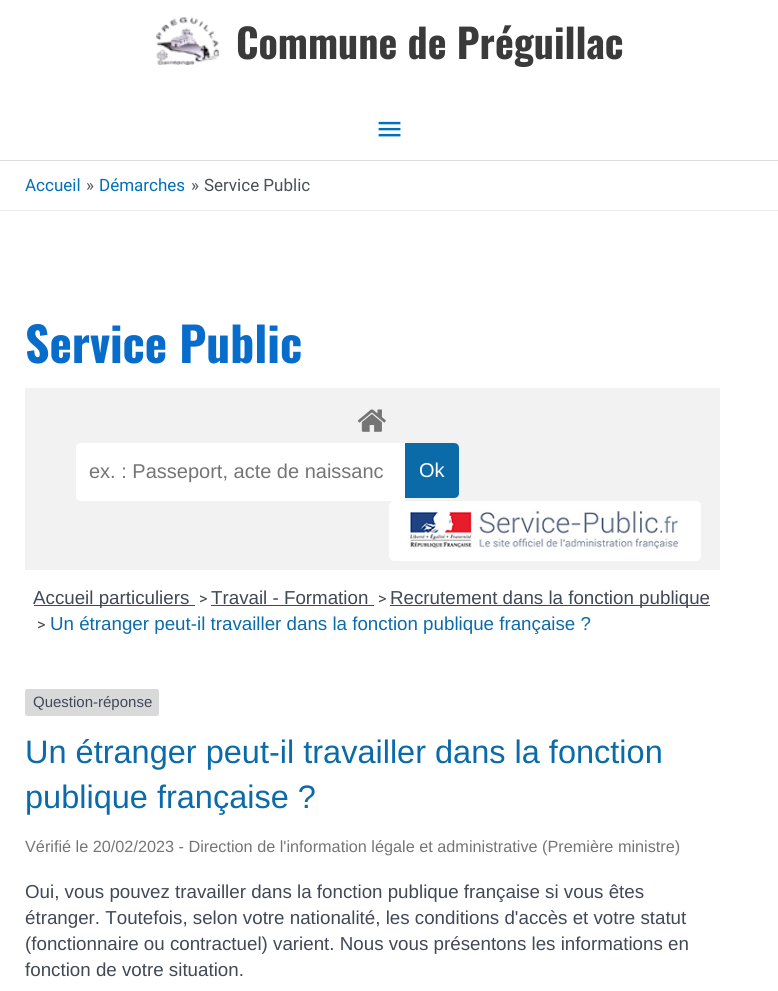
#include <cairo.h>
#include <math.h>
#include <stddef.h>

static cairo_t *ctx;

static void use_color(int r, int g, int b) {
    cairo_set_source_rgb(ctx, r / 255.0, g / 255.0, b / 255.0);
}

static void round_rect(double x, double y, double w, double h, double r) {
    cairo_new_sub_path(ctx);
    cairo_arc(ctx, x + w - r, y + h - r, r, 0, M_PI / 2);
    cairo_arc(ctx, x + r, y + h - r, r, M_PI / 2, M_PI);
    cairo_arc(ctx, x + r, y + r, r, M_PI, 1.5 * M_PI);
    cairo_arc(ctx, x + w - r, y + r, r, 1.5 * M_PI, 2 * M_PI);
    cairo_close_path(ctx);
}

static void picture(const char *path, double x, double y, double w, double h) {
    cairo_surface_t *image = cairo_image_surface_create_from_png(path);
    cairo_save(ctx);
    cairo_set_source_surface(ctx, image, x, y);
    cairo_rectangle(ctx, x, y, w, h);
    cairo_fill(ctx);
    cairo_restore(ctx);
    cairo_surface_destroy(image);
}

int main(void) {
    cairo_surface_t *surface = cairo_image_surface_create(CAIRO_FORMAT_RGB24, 778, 991);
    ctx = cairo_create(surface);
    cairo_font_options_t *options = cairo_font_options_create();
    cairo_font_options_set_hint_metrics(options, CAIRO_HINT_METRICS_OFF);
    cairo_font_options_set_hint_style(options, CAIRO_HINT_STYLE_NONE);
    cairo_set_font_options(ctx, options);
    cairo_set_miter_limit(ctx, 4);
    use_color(255, 255, 255);
    cairo_paint(ctx);
    use_color(221, 221, 221);
    cairo_rectangle(ctx, 0, 160, 778, 1);
    cairo_fill(ctx);
    picture("img1.png", 156, 17, 63, 48);
    cairo_select_font_face(ctx, "Oswald", CAIRO_FONT_SLANT_NORMAL, CAIRO_FONT_WEIGHT_BOLD);
    cairo_set_font_size(ctx, 40);
    use_color(58, 58, 58);
    cairo_move_to(ctx, 236, 59);
    cairo_show_text(ctx, "Commune de Préguillac");
    picture("img2.png", 378, 121, 23, 16);
    use_color(234, 234, 234);
    cairo_rectangle(ctx, 0, 210, 778, 1);
    cairo_fill(ctx);
    cairo_select_font_face(ctx, "Roboto", CAIRO_FONT_SLANT_NORMAL, CAIRO_FONT_WEIGHT_NORMAL);
    cairo_set_font_size(ctx, 17);
    use_color(1, 112, 185);
    cairo_move_to(ctx, 25, 191);
    cairo_show_text(ctx, "Accueil");
    use_color(75, 79, 88);
    cairo_move_to(ctx, 86, 191);
    cairo_show_text(ctx, "»");
    use_color(1, 112, 185);
    cairo_move_to(ctx, 99, 191);
    cairo_show_text(ctx, "Démarches");
    use_color(75, 79, 88);
    cairo_move_to(ctx, 191, 191);
    cairo_show_text(ctx, "»");
    cairo_move_to(ctx, 204, 191);
    cairo_show_text(ctx, "Service Public");
    cairo_select_font_face(ctx, "Oswald", CAIRO_FONT_SLANT_NORMAL, CAIRO_FONT_WEIGHT_BOLD);
    cairo_set_font_size(ctx, 47.5);
    use_color(8, 108, 202);
    cairo_move_to(ctx, 25, 363);
    cairo_show_text(ctx, "Service Public");
    use_color(242, 242, 242);
    cairo_rectangle(ctx, 25, 388, 695, 182);
    cairo_fill(ctx);
    picture("img3.png", 357, 409, 29, 23);
    use_color(255, 255, 255);
    cairo_new_path(ctx);
    cairo_move_to(ctx, 81, 443);
    cairo_line_to(ctx, 405, 443);
    cairo_line_to(ctx, 405, 501);
    cairo_line_to(ctx, 81, 501);
    cairo_curve_to(ctx, 78, 501, 76, 499, 76, 496);
    cairo_line_to(ctx, 76, 448);
    cairo_curve_to(ctx, 76, 445, 78, 443, 81, 443);
    cairo_close_path(ctx);
    cairo_fill(ctx);
    cairo_select_font_face(ctx, "Liberation Sans", CAIRO_FONT_SLANT_NORMAL, CAIRO_FONT_WEIGHT_NORMAL);
    cairo_set_font_size(ctx, 20);
    use_color(117, 117, 117);
    cairo_move_to(ctx, 89, 478);
    cairo_show_text(ctx, "ex. : Passeport, acte de naissanc");
    use_color(11, 107, 168);
    cairo_new_path(ctx);
    cairo_move_to(ctx, 405, 443);
    cairo_line_to(ctx, 454, 443);
    cairo_curve_to(ctx, 457, 443, 459, 445, 459, 448);
    cairo_line_to(ctx, 459, 493);
    cairo_curve_to(ctx, 459, 496, 457, 498, 454, 498);
    cairo_line_to(ctx, 405, 498);
    cairo_close_path(ctx);
    cairo_fill(ctx);
    use_color(255, 255, 255);
    cairo_move_to(ctx, 419, 477);
    cairo_show_text(ctx, "Ok");
    round_rect(389, 501, 312, 60, 5);
    cairo_fill(ctx);
    picture("img4.png", 410, 509, 270, 42);
    use_color(65, 72, 86);
    cairo_rectangle(ctx, 34, 605, 161, 1);
    cairo_fill(ctx);
    cairo_set_font_size(ctx, 18.75);
    cairo_move_to(ctx, 33, 604);
    cairo_show_text(ctx, "Accueil particuliers");
    cairo_select_font_face(ctx, "Roboto", CAIRO_FONT_SLANT_NORMAL, CAIRO_FONT_WEIGHT_NORMAL);
    cairo_set_font_size(ctx, 16.25);
    cairo_move_to(ctx, 199, 604);
    cairo_show_text(ctx, ">");
    cairo_select_font_face(ctx, "Liberation Sans", CAIRO_FONT_SLANT_NORMAL, CAIRO_FONT_WEIGHT_NORMAL);
    cairo_set_font_size(ctx, 18.75);
    cairo_move_to(ctx, 211, 604);
    cairo_show_text(ctx, "Travail - Formation");
    cairo_rectangle(ctx, 211, 605, 163, 1);
    cairo_fill(ctx);
    cairo_select_font_face(ctx, "Roboto", CAIRO_FONT_SLANT_NORMAL, CAIRO_FONT_WEIGHT_NORMAL);
    cairo_set_font_size(ctx, 16.25);
    cairo_move_to(ctx, 378, 604);
    cairo_show_text(ctx, ">");
    cairo_rectangle(ctx, 390, 605, 320, 1);
    cairo_fill(ctx);
    cairo_select_font_face(ctx, "Liberation Sans", CAIRO_FONT_SLANT_NORMAL, CAIRO_FONT_WEIGHT_NORMAL);
    cairo_set_font_size(ctx, 18.75);
    cairo_move_to(ctx, 390, 604);
    cairo_show_text(ctx, "Recrutement dans la fonction publique");
    cairo_select_font_face(ctx, "Roboto", CAIRO_FONT_SLANT_NORMAL, CAIRO_FONT_WEIGHT_NORMAL);
    cairo_set_font_size(ctx, 16.25);
    cairo_move_to(ctx, 37, 630);
    cairo_show_text(ctx, ">");
    cairo_select_font_face(ctx, "Liberation Sans", CAIRO_FONT_SLANT_NORMAL, CAIRO_FONT_WEIGHT_NORMAL);
    cairo_set_font_size(ctx, 18.75);
    use_color(11, 107, 168);
    cairo_move_to(ctx, 50, 630);
    cairo_show_text(ctx, "Un étranger peut-il travailler dans la fonction publique française ?");
    use_color(217, 217, 217);
    round_rect(25, 689, 134, 27, 2.5);
    cairo_fill(ctx);
    cairo_set_font_size(ctx, 15);
    use_color(65, 72, 86);
    cairo_move_to(ctx, 33, 707);
    cairo_show_text(ctx, "Question-réponse");
    cairo_set_font_size(ctx, 32.5);
    use_color(11, 107, 168);
    cairo_move_to(ctx, 25, 763);
    cairo_show_text(ctx, "Un étranger peut-il travailler dans la fonction");
    cairo_move_to(ctx, 25, 808);
    cairo_show_text(ctx, "publique française ?");
    cairo_set_font_size(ctx, 16.25);
    use_color(117, 117, 117);
    cairo_move_to(ctx, 25, 852);
    cairo_show_text(ctx, "Vérifié le 20/02/2023 - Direction de l'information légale et administrative (Première ministre)");
    cairo_set_font_size(ctx, 18.75);
    use_color(65, 72, 86);
    cairo_move_to(ctx, 25, 898);
    cairo_show_text(ctx, "Oui, vous pouvez travailler dans la fonction publique française si vous êtes");
    cairo_move_to(ctx, 25, 924);
    cairo_show_text(ctx, "étranger. Toutefois, selon votre nationalité, les conditions d'accès et votre statut");
    cairo_move_to(ctx, 25, 950);
    cairo_show_text(ctx, "(fonctionnaire ou contractuel) varient. Nous vous présentons les informations en");
    cairo_move_to(ctx, 25, 976);
    cairo_show_text(ctx, "fonction de votre situation.");
    cairo_surface_write_to_png(surface, "result.png");
    cairo_font_options_destroy(options);
    cairo_destroy(ctx);
    cairo_surface_destroy(surface);
    return 0;
}
